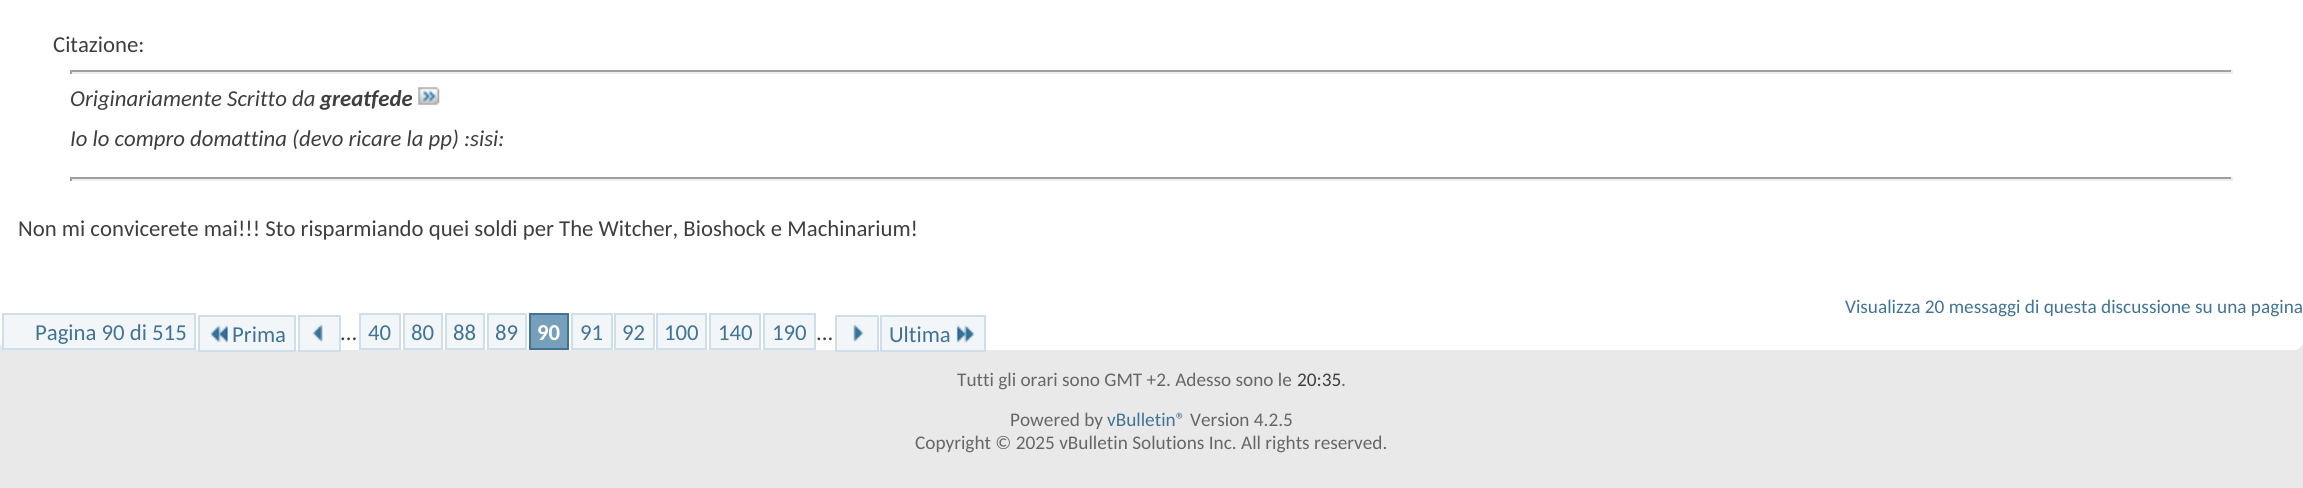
#include <cairo.h>
#include <math.h>
#include <stddef.h>

static cairo_t *ctx;

static void use_color(int r, int g, int b) {
    cairo_set_source_rgb(ctx, r / 255.0, g / 255.0, b / 255.0);
}

static void round_rect(double x, double y, double w, double h, double r) {
    cairo_new_sub_path(ctx);
    cairo_arc(ctx, x + w - r, y + h - r, r, 0, M_PI / 2);
    cairo_arc(ctx, x + r, y + h - r, r, M_PI / 2, M_PI);
    cairo_arc(ctx, x + r, y + r, r, M_PI, 1.5 * M_PI);
    cairo_arc(ctx, x + w - r, y + r, r, 1.5 * M_PI, 2 * M_PI);
    cairo_close_path(ctx);
}

static void picture(const char *path, double x, double y, double w, double h) {
    cairo_surface_t *image = cairo_image_surface_create_from_png(path);
    cairo_save(ctx);
    cairo_set_source_surface(ctx, image, x, y);
    cairo_rectangle(ctx, x, y, w, h);
    cairo_fill(ctx);
    cairo_restore(ctx);
    cairo_surface_destroy(image);
}

int main(void) {
    cairo_surface_t *surface = cairo_image_surface_create(CAIRO_FORMAT_RGB24, 2303, 488);
    ctx = cairo_create(surface);
    cairo_font_options_t *options = cairo_font_options_create();
    cairo_font_options_set_hint_metrics(options, CAIRO_HINT_METRICS_OFF);
    cairo_font_options_set_hint_style(options, CAIRO_HINT_STYLE_NONE);
    cairo_set_font_options(ctx, options);
    cairo_set_miter_limit(ctx, 4);
    use_color(233, 233, 233);
    cairo_paint(ctx);
    use_color(255, 255, 255);
    round_rect(0, -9, 2303, 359, 9);
    cairo_fill(ctx);
    cairo_select_font_face(ctx, "Carlito", CAIRO_FONT_SLANT_NORMAL, CAIRO_FONT_WEIGHT_NORMAL);
    cairo_set_font_size(ctx, 22.75);
    use_color(62, 62, 62);
    cairo_move_to(ctx, 53, 52);
    cairo_show_text(ctx, "Citazione:");
    use_color(159, 159, 159);
    cairo_rectangle(ctx, 70, 70, 2163, 2);
    cairo_fill(ctx);
    use_color(238, 238, 238);
    cairo_rectangle(ctx, 2231, 70, 2, 4);
    cairo_fill(ctx);
    cairo_rectangle(ctx, 70, 72, 2163, 2);
    cairo_fill(ctx);
    use_color(159, 159, 159);
    cairo_rectangle(ctx, 70, 70, 2, 4);
    cairo_fill(ctx);
    cairo_select_font_face(ctx, "Carlito", CAIRO_FONT_SLANT_ITALIC, CAIRO_FONT_WEIGHT_NORMAL);
    use_color(62, 62, 62);
    cairo_move_to(ctx, 70, 106);
    cairo_show_text(ctx, "Originariamente Scritto da");
    cairo_select_font_face(ctx, "Carlito", CAIRO_FONT_SLANT_ITALIC, CAIRO_FONT_WEIGHT_BOLD);
    cairo_move_to(ctx, 320, 106);
    cairo_show_text(ctx, "greatfede");
    picture("img1.png", 418, 87, 22, 18);
    cairo_select_font_face(ctx, "Carlito", CAIRO_FONT_SLANT_ITALIC, CAIRO_FONT_WEIGHT_NORMAL);
    cairo_move_to(ctx, 70, 146);
    cairo_show_text(ctx, "Io lo compro domattina (devo ricare la pp) :sisi:");
    use_color(159, 159, 159);
    cairo_rectangle(ctx, 70, 177, 2163, 2);
    cairo_fill(ctx);
    use_color(238, 238, 238);
    cairo_rectangle(ctx, 2231, 177, 2, 4);
    cairo_fill(ctx);
    cairo_rectangle(ctx, 70, 179, 2163, 2);
    cairo_fill(ctx);
    use_color(159, 159, 159);
    cairo_rectangle(ctx, 70, 177, 2, 4);
    cairo_fill(ctx);
    cairo_select_font_face(ctx, "Carlito", CAIRO_FONT_SLANT_NORMAL, CAIRO_FONT_WEIGHT_NORMAL);
    use_color(62, 62, 62);
    cairo_move_to(ctx, 18, 236);
    cairo_show_text(ctx, "Non mi convicerete mai!!! Sto risparmiando quei soldi per The Witcher, Bioshock e Machinarium!");
    cairo_set_font_size(ctx, 19.25);
    use_color(65, 115, 148);
    cairo_move_to(ctx, 1845, 313);
    cairo_show_text(ctx, "Visualizza 20 messaggi di questa discussione su una pagina");
    use_color(242, 246, 248);
    cairo_rectangle(ctx, 3, 314, 192, 35);
    cairo_fill_preserve(ctx);
    use_color(206, 223, 235);
    cairo_stroke(ctx);
    cairo_set_font_size(ctx, 22.75);
    use_color(65, 115, 148);
    cairo_move_to(ctx, 35, 340);
    cairo_show_text(ctx, "Pagina 90 di 515");
    use_color(242, 246, 248);
    cairo_rectangle(ctx, 200, 317, 94, 33);
    cairo_fill(ctx);
    picture("img2.png", 210, 325, 18, 18);
    use_color(65, 115, 148);
    cairo_move_to(ctx, 232, 342);
    cairo_show_text(ctx, "Prima");
    use_color(206, 223, 235);
    cairo_rectangle(ctx, 198, 315, 98, 2);
    cairo_fill(ctx);
    cairo_rectangle(ctx, 198, 350, 35, 2);
    cairo_fill(ctx);
    cairo_rectangle(ctx, 198, 315, 2, 37);
    cairo_fill(ctx);
    cairo_rectangle(ctx, 294, 315, 2, 37);
    cairo_fill(ctx);
    cairo_rectangle(ctx, 233, 350, 63, 2);
    cairo_fill(ctx);
    use_color(242, 246, 248);
    cairo_rectangle(ctx, 299, 316, 41, 35);
    cairo_fill_preserve(ctx);
    use_color(206, 223, 235);
    cairo_stroke(ctx);
    picture("img3.png", 312, 324, 11, 18);
    use_color(62, 62, 62);
    cairo_move_to(ctx, 340, 340);
    cairo_show_text(ctx, "...");
    use_color(242, 246, 248);
    cairo_rectangle(ctx, 360, 314, 40, 35);
    cairo_fill_preserve(ctx);
    use_color(206, 223, 235);
    cairo_stroke(ctx);
    use_color(65, 115, 148);
    cairo_move_to(ctx, 368, 340);
    cairo_show_text(ctx, "40");
    use_color(242, 246, 248);
    cairo_rectangle(ctx, 404, 314, 38, 35);
    cairo_fill_preserve(ctx);
    use_color(206, 223, 235);
    cairo_stroke(ctx);
    use_color(65, 115, 148);
    cairo_move_to(ctx, 411, 340);
    cairo_show_text(ctx, "80");
    use_color(242, 246, 248);
    cairo_rectangle(ctx, 446, 314, 38, 35);
    cairo_fill_preserve(ctx);
    use_color(206, 223, 235);
    cairo_stroke(ctx);
    use_color(65, 115, 148);
    cairo_move_to(ctx, 453, 340);
    cairo_show_text(ctx, "88");
    use_color(242, 246, 248);
    cairo_rectangle(ctx, 488, 314, 38, 35);
    cairo_fill_preserve(ctx);
    use_color(206, 223, 235);
    cairo_stroke(ctx);
    use_color(65, 115, 148);
    cairo_move_to(ctx, 495, 340);
    cairo_show_text(ctx, "89");
    use_color(117, 159, 187);
    cairo_rectangle(ctx, 530, 314, 38, 35);
    cairo_fill_preserve(ctx);
    use_color(65, 115, 148);
    cairo_stroke(ctx);
    cairo_select_font_face(ctx, "Carlito", CAIRO_FONT_SLANT_NORMAL, CAIRO_FONT_WEIGHT_BOLD);
    use_color(255, 255, 255);
    cairo_move_to(ctx, 537, 340);
    cairo_show_text(ctx, "90");
    use_color(242, 246, 248);
    cairo_rectangle(ctx, 572, 314, 40, 35);
    cairo_fill_preserve(ctx);
    use_color(206, 223, 235);
    cairo_stroke(ctx);
    cairo_select_font_face(ctx, "Carlito", CAIRO_FONT_SLANT_NORMAL, CAIRO_FONT_WEIGHT_NORMAL);
    use_color(65, 115, 148);
    cairo_move_to(ctx, 580, 340);
    cairo_show_text(ctx, "91");
    use_color(242, 246, 248);
    cairo_rectangle(ctx, 615, 314, 39, 35);
    cairo_fill_preserve(ctx);
    use_color(206, 223, 235);
    cairo_stroke(ctx);
    use_color(65, 115, 148);
    cairo_move_to(ctx, 622, 340);
    cairo_show_text(ctx, "92");
    use_color(242, 246, 248);
    cairo_rectangle(ctx, 657, 314, 49, 35);
    cairo_fill_preserve(ctx);
    use_color(206, 223, 235);
    cairo_stroke(ctx);
    use_color(65, 115, 148);
    cairo_move_to(ctx, 664, 340);
    cairo_show_text(ctx, "100");
    use_color(242, 246, 248);
    cairo_rectangle(ctx, 710, 314, 50, 35);
    cairo_fill_preserve(ctx);
    use_color(206, 223, 235);
    cairo_stroke(ctx);
    use_color(65, 115, 148);
    cairo_move_to(ctx, 718, 340);
    cairo_show_text(ctx, "140");
    use_color(242, 246, 248);
    cairo_rectangle(ctx, 764, 314, 51, 35);
    cairo_fill_preserve(ctx);
    use_color(206, 223, 235);
    cairo_stroke(ctx);
    use_color(65, 115, 148);
    cairo_move_to(ctx, 772, 340);
    cairo_show_text(ctx, "190");
    use_color(62, 62, 62);
    cairo_move_to(ctx, 816, 340);
    cairo_show_text(ctx, "...");
    use_color(242, 246, 248);
    cairo_rectangle(ctx, 836, 316, 42, 35);
    cairo_fill_preserve(ctx);
    use_color(206, 223, 235);
    cairo_stroke(ctx);
    picture("img4.png", 853, 324, 11, 18);
    use_color(242, 246, 248);
    cairo_rectangle(ctx, 882, 317, 102, 33);
    cairo_fill(ctx);
    use_color(65, 115, 148);
    cairo_move_to(ctx, 889, 342);
    cairo_show_text(ctx, "Ultima");
    use_color(206, 223, 235);
    cairo_rectangle(ctx, 880, 315, 105, 2);
    cairo_fill(ctx);
    cairo_rectangle(ctx, 880, 350, 70, 2);
    cairo_fill(ctx);
    cairo_rectangle(ctx, 880, 315, 2, 37);
    cairo_fill(ctx);
    cairo_rectangle(ctx, 984, 315, 2, 37);
    cairo_fill(ctx);
    cairo_rectangle(ctx, 950, 350, 35, 2);
    cairo_fill(ctx);
    picture("img5.png", 956, 325, 19, 18);
    cairo_set_font_size(ctx, 19.25);
    use_color(102, 102, 102);
    cairo_move_to(ctx, 957, 386);
    cairo_show_text(ctx, "Tutti gli orari sono GMT +2. Adesso sono le");
    use_color(62, 62, 62);
    cairo_move_to(ctx, 1297, 386);
    cairo_show_text(ctx, "20:35");
    use_color(102, 102, 102);
    cairo_move_to(ctx, 1341, 386);
    cairo_show_text(ctx, ".");
    cairo_move_to(ctx, 1010, 426);
    cairo_show_text(ctx, "Powered by");
    use_color(65, 115, 148);
    cairo_move_to(ctx, 1107, 426);
    cairo_show_text(ctx, "vBulletin®");
    use_color(102, 102, 102);
    cairo_move_to(ctx, 1190, 426);
    cairo_show_text(ctx, "Version 4.2.5");
    cairo_move_to(ctx, 915, 449);
    cairo_show_text(ctx, "Copyright © 2025 vBulletin Solutions Inc. All rights reserved.");
    cairo_surface_write_to_png(surface, "result.png");
    cairo_font_options_destroy(options);
    cairo_destroy(ctx);
    cairo_surface_destroy(surface);
    return 0;
}
